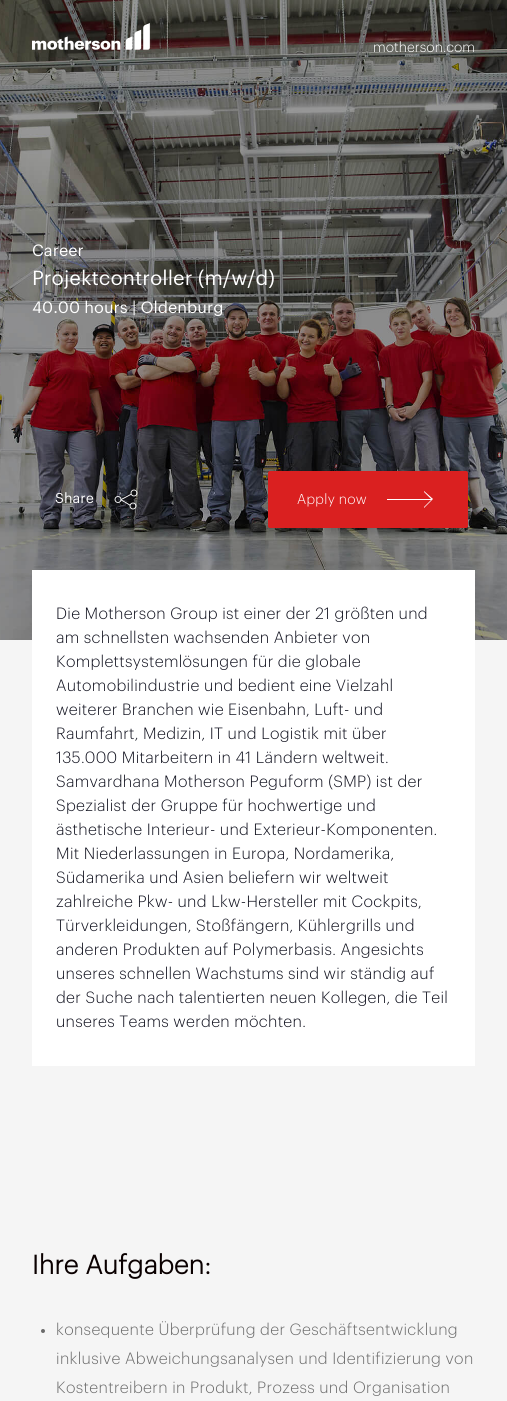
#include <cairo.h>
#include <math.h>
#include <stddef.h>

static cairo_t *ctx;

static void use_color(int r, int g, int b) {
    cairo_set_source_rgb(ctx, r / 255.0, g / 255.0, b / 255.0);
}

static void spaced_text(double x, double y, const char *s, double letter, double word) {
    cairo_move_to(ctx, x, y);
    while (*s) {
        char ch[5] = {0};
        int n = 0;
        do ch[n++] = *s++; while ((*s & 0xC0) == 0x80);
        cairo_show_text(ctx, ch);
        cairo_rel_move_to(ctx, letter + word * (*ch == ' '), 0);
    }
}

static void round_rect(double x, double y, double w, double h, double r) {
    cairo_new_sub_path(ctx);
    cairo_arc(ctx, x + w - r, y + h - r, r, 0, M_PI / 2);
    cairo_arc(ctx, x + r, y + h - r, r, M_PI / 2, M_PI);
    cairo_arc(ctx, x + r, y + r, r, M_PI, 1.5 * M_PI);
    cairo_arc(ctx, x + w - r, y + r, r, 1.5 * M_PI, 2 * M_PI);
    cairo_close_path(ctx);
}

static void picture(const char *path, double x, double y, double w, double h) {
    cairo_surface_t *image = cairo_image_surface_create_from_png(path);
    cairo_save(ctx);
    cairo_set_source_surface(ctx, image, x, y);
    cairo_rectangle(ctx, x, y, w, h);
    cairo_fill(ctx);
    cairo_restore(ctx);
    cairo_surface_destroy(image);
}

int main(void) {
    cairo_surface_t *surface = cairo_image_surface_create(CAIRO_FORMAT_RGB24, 507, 1401);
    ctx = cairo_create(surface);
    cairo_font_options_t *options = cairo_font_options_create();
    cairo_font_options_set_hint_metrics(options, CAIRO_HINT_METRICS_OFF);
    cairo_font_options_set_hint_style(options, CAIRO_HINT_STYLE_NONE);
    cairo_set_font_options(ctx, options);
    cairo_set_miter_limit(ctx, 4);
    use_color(255, 255, 255);
    cairo_paint(ctx);
    picture("img1.png", 0, 0, 507, 640);
    picture("img2.png", 32, 23, 118, 27);
    cairo_select_font_face(ctx, "Graphik Light", CAIRO_FONT_SLANT_NORMAL, CAIRO_FONT_WEIGHT_NORMAL);
    cairo_set_font_size(ctx, 14);
    use_color(255, 255, 255);
    cairo_move_to(ctx, 373, 52);
    cairo_show_text(ctx, "motherson.com");
    cairo_select_font_face(ctx, "Graphik", CAIRO_FONT_SLANT_NORMAL, CAIRO_FONT_WEIGHT_NORMAL);
    cairo_set_font_size(ctx, 16);
    cairo_move_to(ctx, 32, 256);
    cairo_show_text(ctx, "Career");
    cairo_set_font_size(ctx, 20);
    cairo_move_to(ctx, 32, 285);
    cairo_show_text(ctx, "Projektcontroller (m/w/d)");
    cairo_set_font_size(ctx, 16);
    cairo_move_to(ctx, 32, 313);
    cairo_show_text(ctx, "40.00 hours | Oldenburg");
    cairo_set_font_size(ctx, 14);
    cairo_move_to(ctx, 55, 503);
    cairo_show_text(ctx, "Share");
    picture("img3.png", 114, 489, 24, 21);
    use_color(218, 32, 32);
    round_rect(268, 471, 200, 57, 2);
    cairo_fill(ctx);
    cairo_select_font_face(ctx, "Graphik Light", CAIRO_FONT_SLANT_NORMAL, CAIRO_FONT_WEIGHT_NORMAL);
    use_color(255, 255, 255);
    spaced_text(297, 504, "Apply now", 0.25, 0);
    cairo_set_fill_rule(ctx, CAIRO_FILL_RULE_EVEN_ODD);
    cairo_new_path(ctx);
    cairo_move_to(ctx, 431, 499);
    cairo_line_to(ctx, 424, 492);
    cairo_line_to(ctx, 424, 491);
    cairo_line_to(ctx, 433, 499);
    cairo_line_to(ctx, 424, 508);
    cairo_line_to(ctx, 424, 507);
    cairo_line_to(ctx, 431, 500);
    cairo_line_to(ctx, 387, 500);
    cairo_line_to(ctx, 387, 499);
    cairo_close_path(ctx);
    cairo_fill(ctx);
    use_color(245, 245, 245);
    cairo_rectangle(ctx, 0, 640, 507, 761);
    cairo_fill(ctx);
    use_color(255, 255, 255);
    cairo_rectangle(ctx, 32, 570, 443, 496);
    cairo_fill(ctx);
    cairo_set_font_size(ctx, 16);
    use_color(16, 17, 30);
    spaced_text(56, 619, "Die Motherson Group ist einer der 21 größten und", 0.25, 0);
    spaced_text(56, 643, "am schnellsten wachsenden Anbieter von", 0.25, 0);
    spaced_text(56, 667, "Komplettsystemlösungen für die globale", 0.25, 0);
    spaced_text(56, 691, "Automobilindustrie und bedient eine Vielzahl", 0.25, 0);
    spaced_text(56, 715, "weiterer Branchen wie Eisenbahn, Luft- und", 0.25, 0);
    spaced_text(56, 739, "Raumfahrt, Medizin, IT und Logistik mit über", 0.25, 0);
    spaced_text(56, 763, "135.000 Mitarbeitern in 41 Ländern weltweit.", 0.25, 0);
    spaced_text(56, 787, "Samvardhana Motherson Peguform (SMP) ist der", 0.25, 0);
    spaced_text(56, 811, "Spezialist der Gruppe für hochwertige und", 0.25, 0);
    spaced_text(56, 835, "ästhetische Interieur- und Exterieur-Komponenten.", 0.25, 0);
    spaced_text(56, 859, "Mit Niederlassungen in Europa, Nordamerika,", 0.25, 0);
    spaced_text(56, 883, "Südamerika und Asien beliefern wir weltweit", 0.25, 0);
    spaced_text(56, 907, "zahlreiche Pkw- und Lkw-Hersteller mit Cockpits,", 0.25, 0);
    spaced_text(56, 931, "Türverkleidungen, Stoßfängern, Kühlergrills und", 0.25, 0);
    spaced_text(56, 955, "anderen Produkten auf Polymerbasis. Angesichts", 0.25, 0);
    spaced_text(56, 979, "unseres schnellen Wachstums sind wir ständig auf", 0.25, 0);
    spaced_text(56, 1003, "der Suche nach talentierten neuen Kollegen, die Teil", 0.25, 0);
    spaced_text(56, 1027, "unseres Teams werden möchten.", 0.25, 0);
    cairo_select_font_face(ctx, "Graphik", CAIRO_FONT_SLANT_NORMAL, CAIRO_FONT_WEIGHT_BOLD);
    cairo_set_font_size(ctx, 26);
    use_color(10, 0, 0);
    spaced_text(32, 1274, "Ihre Aufgaben:", 0.28, 0);
    use_color(107, 107, 107);
    cairo_new_path(ctx);
    cairo_arc(ctx, 43, 1331, 2, 0, 2 * M_PI);
    cairo_fill(ctx);
    cairo_select_font_face(ctx, "Graphik Light", CAIRO_FONT_SLANT_NORMAL, CAIRO_FONT_WEIGHT_NORMAL);
    cairo_set_font_size(ctx, 16);
    spaced_text(56, 1335, "konsequente Überprüfung der Geschäftsentwicklung", 0.28, 0);
    spaced_text(56, 1364, "inklusive Abweichungsanalysen und Identifizierung von", 0.28, 0);
    spaced_text(56, 1393, "Kostentreibern in Produkt, Prozess und Organisation", 0.28, 0);
    cairo_surface_write_to_png(surface, "result.png");
    cairo_font_options_destroy(options);
    cairo_destroy(ctx);
    cairo_surface_destroy(surface);
    return 0;
}
